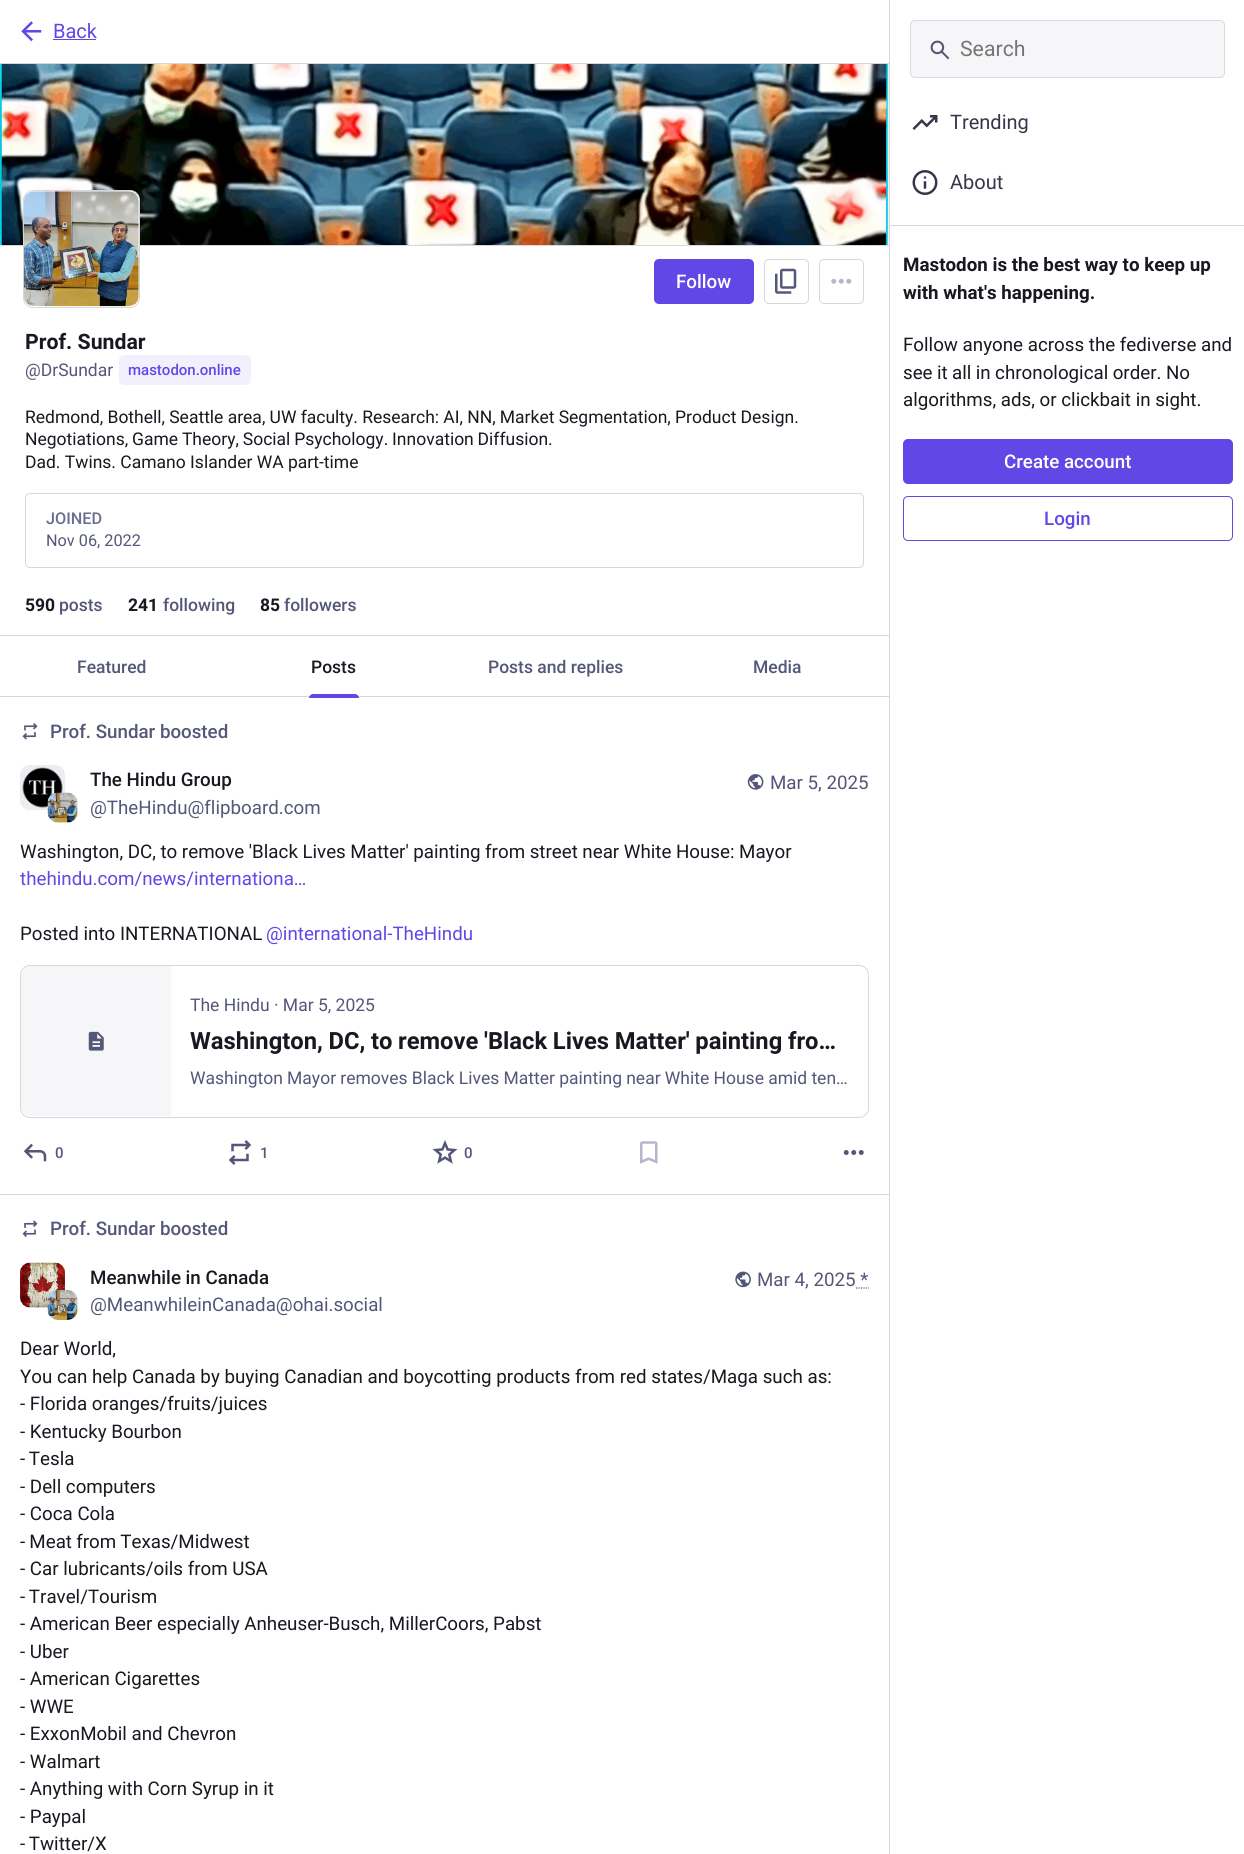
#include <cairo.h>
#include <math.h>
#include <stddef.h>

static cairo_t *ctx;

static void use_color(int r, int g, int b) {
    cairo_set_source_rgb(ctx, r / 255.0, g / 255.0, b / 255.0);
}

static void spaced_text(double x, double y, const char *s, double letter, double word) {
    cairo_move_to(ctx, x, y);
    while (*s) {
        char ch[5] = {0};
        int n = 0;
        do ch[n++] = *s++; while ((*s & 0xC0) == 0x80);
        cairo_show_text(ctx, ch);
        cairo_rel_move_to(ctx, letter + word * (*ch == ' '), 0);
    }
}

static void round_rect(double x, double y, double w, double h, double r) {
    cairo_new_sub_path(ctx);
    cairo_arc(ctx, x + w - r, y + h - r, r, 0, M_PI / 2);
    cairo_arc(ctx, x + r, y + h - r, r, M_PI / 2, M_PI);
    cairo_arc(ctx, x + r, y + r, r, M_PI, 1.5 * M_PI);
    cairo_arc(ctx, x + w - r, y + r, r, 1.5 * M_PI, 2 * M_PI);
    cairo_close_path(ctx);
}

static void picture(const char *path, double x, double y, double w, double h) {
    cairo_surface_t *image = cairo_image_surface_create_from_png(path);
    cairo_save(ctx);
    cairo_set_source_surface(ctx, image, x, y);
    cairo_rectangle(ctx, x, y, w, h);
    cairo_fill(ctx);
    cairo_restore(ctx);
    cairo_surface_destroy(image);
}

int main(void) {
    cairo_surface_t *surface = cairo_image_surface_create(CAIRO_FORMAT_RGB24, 1244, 1854);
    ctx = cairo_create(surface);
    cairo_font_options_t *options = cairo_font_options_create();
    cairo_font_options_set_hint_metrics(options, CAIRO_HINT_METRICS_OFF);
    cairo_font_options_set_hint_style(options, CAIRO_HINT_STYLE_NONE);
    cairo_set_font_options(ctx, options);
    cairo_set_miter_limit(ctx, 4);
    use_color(255, 255, 255);
    cairo_paint(ctx);
    use_color(216, 216, 218);
    cairo_rectangle(ctx, 0, 63, 889, 1);
    cairo_fill(ctx);
    picture("img1.png", 21, 21, 21, 21);
    cairo_select_font_face(ctx, "Roboto", CAIRO_FONT_SLANT_NORMAL, CAIRO_FONT_WEIGHT_NORMAL);
    cairo_set_font_size(ctx, 20);
    use_color(97, 71, 230);
    cairo_move_to(ctx, 53, 38);
    cairo_show_text(ctx, "Back");
    cairo_rectangle(ctx, 53, 39, 43, 1);
    cairo_fill(ctx);
    use_color(236, 237, 241);
    cairo_rectangle(ctx, 888, 64, 1, 181);
    cairo_fill(ctx);
    use_color(216, 216, 218);
    cairo_rectangle(ctx, 0, 245, 889, 1);
    cairo_fill(ctx);
    picture("img2.png", 0, 64, 889, 181);
    cairo_rectangle(ctx, 0, 635, 889, 1);
    cairo_fill(ctx);
    use_color(255, 255, 255);
    round_rect(23.5, 190.5, 116, 117, 9.5);
    cairo_fill_preserve(ctx);
    use_color(216, 216, 218);
    cairo_set_line_width(ctx, 1);
    cairo_stroke(ctx);
    picture("img3.png", 23, 191, 116, 116);
    use_color(97, 71, 230);
    round_rect(654, 259, 100, 45, 5);
    cairo_fill(ctx);
    cairo_select_font_face(ctx, "Roboto Medium", CAIRO_FONT_SLANT_NORMAL, CAIRO_FONT_WEIGHT_NORMAL);
    cairo_set_font_size(ctx, 18.75);
    use_color(255, 255, 255);
    cairo_move_to(ctx, 676, 288);
    cairo_show_text(ctx, "Follow");
    round_rect(764.5, 259.5, 44, 44, 4.5);
    use_color(216, 216, 218);
    cairo_stroke(ctx);
    picture("img4.png", 775, 268, 22, 26);
    round_rect(819.5, 259.5, 44, 44, 4.5);
    cairo_stroke(ctx);
    picture("img5.png", 831, 278, 21, 6);
    cairo_select_font_face(ctx, "Roboto", CAIRO_FONT_SLANT_NORMAL, CAIRO_FONT_WEIGHT_BOLD);
    cairo_set_font_size(ctx, 21.25);
    use_color(24, 24, 33);
    cairo_move_to(ctx, 25, 349);
    cairo_show_text(ctx, "Prof. Sundar");
    cairo_select_font_face(ctx, "Roboto", CAIRO_FONT_SLANT_NORMAL, CAIRO_FONT_WEIGHT_NORMAL);
    cairo_set_font_size(ctx, 17.5);
    use_color(84, 87, 120);
    cairo_move_to(ctx, 25, 376);
    cairo_show_text(ctx, "@DrSundar");
    use_color(242, 240, 253);
    round_rect(119, 355, 132, 30, 5);
    cairo_fill(ctx);
    cairo_select_font_face(ctx, "Roboto Medium", CAIRO_FONT_SLANT_NORMAL, CAIRO_FONT_WEIGHT_NORMAL);
    cairo_set_font_size(ctx, 15);
    use_color(97, 71, 230);
    cairo_move_to(ctx, 128, 375);
    cairo_show_text(ctx, "mastodon.online");
    cairo_select_font_face(ctx, "Roboto", CAIRO_FONT_SLANT_NORMAL, CAIRO_FONT_WEIGHT_NORMAL);
    cairo_set_font_size(ctx, 17.5);
    use_color(24, 24, 33);
    spaced_text(25, 423, "Redmond, Bothell, Seattle area, UW faculty. Research: AI, NN, Market Segmentation, Product Design.", 0, -0.1);
    spaced_text(25, 445, "Negotiations, Game Theory, Social Psychology. Innovation Diffusion.", 0, -0.5);
    cairo_move_to(ctx, 25, 468);
    cairo_show_text(ctx, "Dad. Twins. Camano Islander WA part-time");
    round_rect(25.5, 493.5, 838, 74, 4.5);
    use_color(216, 216, 218);
    cairo_stroke(ctx);
    cairo_select_font_face(ctx, "Roboto Medium", CAIRO_FONT_SLANT_NORMAL, CAIRO_FONT_WEIGHT_NORMAL);
    cairo_set_font_size(ctx, 16.25);
    use_color(105, 109, 145);
    cairo_move_to(ctx, 46, 524);
    cairo_show_text(ctx, "JOINED");
    cairo_select_font_face(ctx, "Roboto", CAIRO_FONT_SLANT_NORMAL, CAIRO_FONT_WEIGHT_NORMAL);
    use_color(84, 87, 120);
    cairo_move_to(ctx, 46, 546);
    cairo_show_text(ctx, "Nov 06, 2022");
    cairo_select_font_face(ctx, "Roboto", CAIRO_FONT_SLANT_NORMAL, CAIRO_FONT_WEIGHT_BOLD);
    cairo_set_font_size(ctx, 17.5);
    use_color(24, 24, 33);
    cairo_move_to(ctx, 25, 611);
    cairo_show_text(ctx, "590");
    cairo_select_font_face(ctx, "Roboto Medium", CAIRO_FONT_SLANT_NORMAL, CAIRO_FONT_WEIGHT_NORMAL);
    use_color(84, 87, 120);
    cairo_move_to(ctx, 59, 611);
    cairo_show_text(ctx, "posts");
    cairo_select_font_face(ctx, "Roboto", CAIRO_FONT_SLANT_NORMAL, CAIRO_FONT_WEIGHT_BOLD);
    use_color(24, 24, 33);
    cairo_move_to(ctx, 128, 611);
    cairo_show_text(ctx, "241");
    cairo_select_font_face(ctx, "Roboto Medium", CAIRO_FONT_SLANT_NORMAL, CAIRO_FONT_WEIGHT_NORMAL);
    use_color(84, 87, 120);
    cairo_move_to(ctx, 163, 611);
    cairo_show_text(ctx, "following");
    cairo_select_font_face(ctx, "Roboto", CAIRO_FONT_SLANT_NORMAL, CAIRO_FONT_WEIGHT_BOLD);
    use_color(24, 24, 33);
    cairo_move_to(ctx, 260, 611);
    cairo_show_text(ctx, "85");
    cairo_select_font_face(ctx, "Roboto Medium", CAIRO_FONT_SLANT_NORMAL, CAIRO_FONT_WEIGHT_NORMAL);
    use_color(84, 87, 120);
    cairo_move_to(ctx, 284, 611);
    cairo_show_text(ctx, "followers");
    use_color(216, 216, 218);
    cairo_rectangle(ctx, 0, 696, 889, 1);
    cairo_fill(ctx);
    use_color(84, 87, 120);
    cairo_move_to(ctx, 77, 673);
    cairo_show_text(ctx, "Featured");
    use_color(24, 24, 33);
    cairo_move_to(ctx, 311, 673);
    cairo_show_text(ctx, "Posts");
    use_color(97, 71, 230);
    cairo_new_path(ctx);
    cairo_move_to(ctx, 313, 694);
    cairo_line_to(ctx, 355, 694);
    cairo_curve_to(ctx, 357, 694, 359, 696, 359, 698);
    cairo_line_to(ctx, 309, 698);
    cairo_curve_to(ctx, 309, 696, 311, 694, 313, 694);
    cairo_close_path(ctx);
    cairo_fill(ctx);
    use_color(84, 87, 120);
    cairo_move_to(ctx, 488, 673);
    cairo_show_text(ctx, "Posts and replies");
    cairo_move_to(ctx, 753, 673);
    cairo_show_text(ctx, "Media");
    picture("img6.png", 22, 723, 16, 17);
    cairo_set_font_size(ctx, 18.75);
    cairo_move_to(ctx, 50, 738);
    cairo_show_text(ctx, "Prof. Sundar boosted");
    use_color(216, 216, 218);
    cairo_rectangle(ctx, 0, 1194, 889, 1);
    cairo_fill(ctx);
    use_color(236, 237, 241);
    round_rect(20, 765, 45, 45, 10);
    cairo_fill(ctx);
    picture("img7.png", 22, 767, 41, 41);
    round_rect(48, 793, 30, 30, 10);
    cairo_fill(ctx);
    picture("img8.png", 47, 792, 31, 31);
    use_color(24, 24, 33);
    cairo_move_to(ctx, 90, 786);
    cairo_show_text(ctx, "The Hindu Group");
    cairo_select_font_face(ctx, "Roboto", CAIRO_FONT_SLANT_NORMAL, CAIRO_FONT_WEIGHT_NORMAL);
    use_color(84, 87, 120);
    cairo_move_to(ctx, 90, 814);
    cairo_show_text(ctx, "@TheHindu@flipboard.com");
    picture("img9.png", 747, 774, 17, 16);
    cairo_move_to(ctx, 770, 789);
    cairo_show_text(ctx, "Mar 5, 2025");
    use_color(24, 24, 33);
    spaced_text(20, 858, "Washington, DC, to remove 'Black Lives Matter' painting from street near White House: Mayor", 0, -0.1);
    use_color(97, 71, 230);
    cairo_move_to(ctx, 20, 885);
    cairo_show_text(ctx, "thehindu.com/news/internationa…");
    use_color(24, 24, 33);
    cairo_move_to(ctx, 20, 940);
    cairo_show_text(ctx, "Posted into INTERNATIONAL");
    use_color(97, 71, 230);
    cairo_move_to(ctx, 266, 940);
    cairo_show_text(ctx, "@international-TheHindu");
    round_rect(20.5, 965.5, 848, 152, 9.5);
    use_color(216, 216, 218);
    cairo_stroke(ctx);
    cairo_save(ctx);
    round_rect(21, 966, 847, 150, 9);
    cairo_clip(ctx);
    use_color(246, 246, 248);
    cairo_new_path(ctx);
    cairo_move_to(ctx, 31, 966);
    cairo_line_to(ctx, 171, 966);
    cairo_line_to(ctx, 171, 1116);
    cairo_line_to(ctx, 31, 1116);
    cairo_curve_to(ctx, 25.5, 1116, 21, 1111.5, 21, 1106);
    cairo_line_to(ctx, 21, 976);
    cairo_curve_to(ctx, 21, 970.5, 25.5, 966, 31, 966);
    cairo_close_path(ctx);
    cairo_fill(ctx);
    cairo_restore(ctx);
    picture("img10.png", 88, 1031, 16, 20);
    cairo_set_font_size(ctx, 17.5);
    use_color(84, 87, 120);
    cairo_move_to(ctx, 190, 1011);
    cairo_show_text(ctx, "The Hindu · Mar 5, 2025");
    cairo_select_font_face(ctx, "Roboto", CAIRO_FONT_SLANT_NORMAL, CAIRO_FONT_WEIGHT_BOLD);
    cairo_set_font_size(ctx, 23.75);
    use_color(24, 24, 33);
    spaced_text(190, 1049, "Washington, DC, to remove 'Black Lives Matter' painting fro…", 0, -0.25);
    cairo_select_font_face(ctx, "Roboto", CAIRO_FONT_SLANT_NORMAL, CAIRO_FONT_WEIGHT_NORMAL);
    cairo_set_font_size(ctx, 17.5);
    use_color(84, 87, 120);
    spaced_text(190, 1084, "Washington Mayor removes Black Lives Matter painting near White House amid ten…", 0, -0.1);
    picture("img11.png", 23, 1143, 24, 19);
    cairo_select_font_face(ctx, "Roboto Medium", CAIRO_FONT_SLANT_NORMAL, CAIRO_FONT_WEIGHT_NORMAL);
    cairo_set_font_size(ctx, 15);
    cairo_move_to(ctx, 55, 1158);
    cairo_show_text(ctx, "0");
    picture("img12.png", 228, 1140, 24, 25);
    cairo_move_to(ctx, 260, 1158);
    cairo_show_text(ctx, "1");
    picture("img13.png", 432, 1140, 26, 24);
    cairo_move_to(ctx, 464, 1158);
    cairo_show_text(ctx, "0");
    picture("img14.png", 640, 1141, 18, 23);
    picture("img15.png", 843, 1150, 21, 5);
    picture("img16.png", 22, 1220, 16, 17);
    cairo_set_font_size(ctx, 18.75);
    cairo_move_to(ctx, 50, 1235);
    cairo_show_text(ctx, "Prof. Sundar boosted");
    use_color(236, 237, 241);
    round_rect(20, 1263, 45, 45, 10);
    cairo_fill(ctx);
    picture("img17.png", 20, 1262, 45, 46);
    round_rect(48, 1290, 30, 30, 10);
    cairo_fill(ctx);
    picture("img18.png", 47, 1290, 31, 30);
    use_color(24, 24, 33);
    cairo_move_to(ctx, 90, 1284);
    cairo_show_text(ctx, "Meanwhile in Canada");
    cairo_select_font_face(ctx, "Roboto", CAIRO_FONT_SLANT_NORMAL, CAIRO_FONT_WEIGHT_NORMAL);
    use_color(84, 87, 120);
    cairo_move_to(ctx, 90, 1311);
    cairo_show_text(ctx, "@MeanwhileinCanada@ohai.social");
    picture("img19.png", 735, 1271, 16, 17);
    cairo_move_to(ctx, 757, 1286);
    cairo_show_text(ctx, "Mar 4, 2025 *");
    cairo_new_path(ctx);
    cairo_move_to(ctx, 856, 1288);
    cairo_line_to(ctx, 869, 1288);
    cairo_set_line_width(ctx, 1.2);
    cairo_set_dash(ctx, (double[]){1.25, 1.25}, 2, 0);
    cairo_stroke(ctx);
    use_color(24, 24, 33);
    cairo_move_to(ctx, 20, 1355);
    cairo_show_text(ctx, "Dear World,");
    cairo_move_to(ctx, 20, 1383);
    cairo_show_text(ctx, "You can help Canada by buying Canadian and boycotting products from red states/Maga such as:");
    cairo_move_to(ctx, 20, 1410);
    cairo_show_text(ctx, "- Florida oranges/fruits/juices");
    cairo_move_to(ctx, 20, 1438);
    cairo_show_text(ctx, "- Kentucky Bourbon");
    spaced_text(20, 1465, "- Tesla", 0, -1);
    cairo_move_to(ctx, 20, 1493);
    cairo_show_text(ctx, "- Dell computers");
    cairo_move_to(ctx, 20, 1520);
    cairo_show_text(ctx, "- Coca Cola");
    spaced_text(20, 1548, "- Meat from Texas/Midwest", 0, -0.5);
    cairo_move_to(ctx, 20, 1575);
    cairo_show_text(ctx, "- Car lubricants/oils from USA");
    spaced_text(20, 1603, "- Travel/Tourism", 0, -1);
    cairo_move_to(ctx, 20, 1630);
    cairo_show_text(ctx, "- American Beer especially Anheuser-Busch, MillerCoors, Pabst");
    cairo_move_to(ctx, 20, 1658);
    cairo_show_text(ctx, "- Uber");
    cairo_move_to(ctx, 20, 1685);
    cairo_show_text(ctx, "- American Cigarettes");
    cairo_move_to(ctx, 20, 1713);
    cairo_show_text(ctx, "- WWE");
    cairo_move_to(ctx, 20, 1740);
    cairo_show_text(ctx, "- ExxonMobil and Chevron");
    cairo_move_to(ctx, 20, 1768);
    cairo_show_text(ctx, "- Walmart");
    cairo_move_to(ctx, 20, 1795);
    cairo_show_text(ctx, "- Anything with Corn Syrup in it");
    cairo_move_to(ctx, 20, 1823);
    cairo_show_text(ctx, "- Paypal");
    spaced_text(20, 1850, "- Twitter/X", 0, -1);
    use_color(216, 216, 218);
    cairo_rectangle(ctx, 889, 0, 1, 1854);
    cairo_fill(ctx);
    use_color(246, 246, 248);
    round_rect(910.5, 20.5, 314, 57, 4.5);
    cairo_fill_preserve(ctx);
    use_color(216, 217, 227);
    cairo_set_line_width(ctx, 1);
    cairo_set_dash(ctx, NULL, 0, 0);
    cairo_stroke(ctx);
    picture("img20.png", 930, 40, 20, 20);
    cairo_set_font_size(ctx, 21.25);
    use_color(117, 117, 117);
    cairo_move_to(ctx, 960, 56);
    cairo_show_text(ctx, "Search");
    picture("img21.png", 912, 115, 26, 15);
    cairo_set_font_size(ctx, 20);
    use_color(53, 54, 74);
    cairo_move_to(ctx, 950, 129);
    cairo_show_text(ctx, "Trending");
    picture("img22.png", 912, 170, 26, 25);
    cairo_move_to(ctx, 950, 189);
    cairo_show_text(ctx, "About");
    use_color(216, 216, 218);
    cairo_rectangle(ctx, 890, 225, 354, 1);
    cairo_fill(ctx);
    cairo_select_font_face(ctx, "Roboto", CAIRO_FONT_SLANT_NORMAL, CAIRO_FONT_WEIGHT_BOLD);
    cairo_set_font_size(ctx, 18.75);
    use_color(24, 24, 33);
    cairo_move_to(ctx, 903, 271);
    cairo_show_text(ctx, "Mastodon is the best way to keep up");
    cairo_move_to(ctx, 903, 299);
    cairo_show_text(ctx, "with what's happening.");
    cairo_select_font_face(ctx, "Roboto", CAIRO_FONT_SLANT_NORMAL, CAIRO_FONT_WEIGHT_NORMAL);
    cairo_move_to(ctx, 903, 351);
    cairo_show_text(ctx, "Follow anyone across the fediverse and");
    spaced_text(903, 379, "see it all in chronological order. No", 0, -0.25);
    cairo_move_to(ctx, 903, 406);
    cairo_show_text(ctx, "algorithms, ads, or clickbait in sight.");
    use_color(97, 71, 230);
    round_rect(903, 439, 330, 45, 5);
    cairo_fill(ctx);
    cairo_select_font_face(ctx, "Roboto Medium", CAIRO_FONT_SLANT_NORMAL, CAIRO_FONT_WEIGHT_NORMAL);
    use_color(255, 255, 255);
    cairo_move_to(ctx, 1004, 468);
    cairo_show_text(ctx, "Create account");
    round_rect(903.5, 496.5, 329, 44, 4.5);
    use_color(97, 71, 230);
    cairo_stroke(ctx);
    cairo_move_to(ctx, 1044, 525);
    cairo_show_text(ctx, "Login");
    cairo_surface_write_to_png(surface, "result.png");
    cairo_font_options_destroy(options);
    cairo_destroy(ctx);
    cairo_surface_destroy(surface);
    return 0;
}
